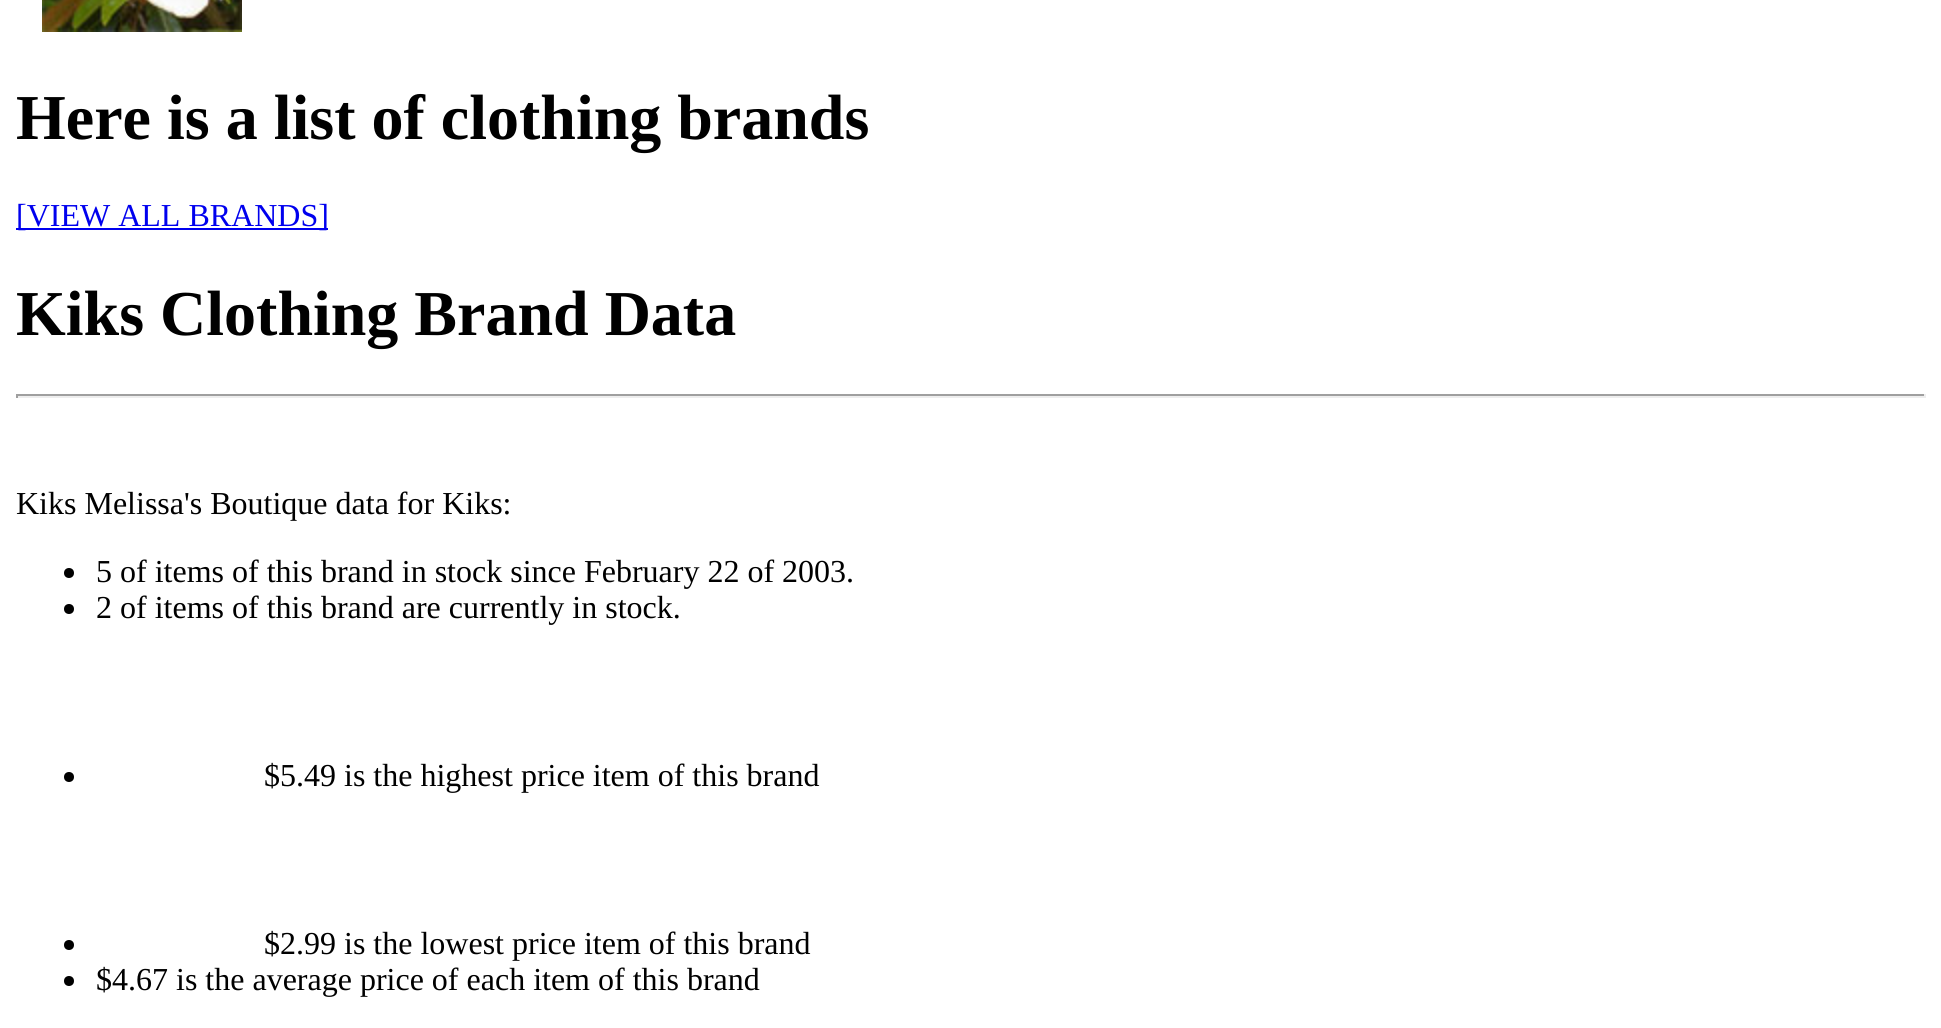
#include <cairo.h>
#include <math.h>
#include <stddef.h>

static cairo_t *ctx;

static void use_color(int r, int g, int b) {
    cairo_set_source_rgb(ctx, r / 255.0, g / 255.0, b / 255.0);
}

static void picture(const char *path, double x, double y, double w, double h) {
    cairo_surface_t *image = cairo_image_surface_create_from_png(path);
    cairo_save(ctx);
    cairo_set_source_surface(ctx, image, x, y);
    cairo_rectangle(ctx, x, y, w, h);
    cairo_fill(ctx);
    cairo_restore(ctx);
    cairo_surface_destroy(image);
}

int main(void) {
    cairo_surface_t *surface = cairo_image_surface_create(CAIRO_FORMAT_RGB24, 1941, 1028);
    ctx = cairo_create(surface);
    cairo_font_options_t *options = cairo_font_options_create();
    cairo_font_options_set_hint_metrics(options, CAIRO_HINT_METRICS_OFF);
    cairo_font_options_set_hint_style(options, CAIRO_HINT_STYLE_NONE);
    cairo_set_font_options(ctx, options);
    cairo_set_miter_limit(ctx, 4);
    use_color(255, 255, 255);
    cairo_paint(ctx);
    picture("img1.png", 42, 0, 200, 32);
    cairo_select_font_face(ctx, "Liberation Serif", CAIRO_FONT_SLANT_NORMAL, CAIRO_FONT_WEIGHT_BOLD);
    cairo_set_font_size(ctx, 64);
    use_color(0, 0, 0);
    cairo_move_to(ctx, 16, 139);
    cairo_show_text(ctx, "Here is a list of clothing brands");
    use_color(0, 0, 238);
    cairo_rectangle(ctx, 16, 228, 312, 2);
    cairo_fill(ctx);
    cairo_select_font_face(ctx, "Liberation Serif", CAIRO_FONT_SLANT_NORMAL, CAIRO_FONT_WEIGHT_NORMAL);
    cairo_set_font_size(ctx, 32);
    cairo_move_to(ctx, 16, 226);
    cairo_show_text(ctx, "[VIEW ALL BRANDS]");
    cairo_select_font_face(ctx, "Liberation Serif", CAIRO_FONT_SLANT_NORMAL, CAIRO_FONT_WEIGHT_BOLD);
    cairo_set_font_size(ctx, 64);
    use_color(0, 0, 0);
    cairo_move_to(ctx, 16, 335);
    cairo_show_text(ctx, "Kiks Clothing Brand Data");
    use_color(159, 159, 159);
    cairo_rectangle(ctx, 16, 394, 1910, 2);
    cairo_fill(ctx);
    use_color(238, 238, 238);
    cairo_rectangle(ctx, 1924, 394, 2, 4);
    cairo_fill(ctx);
    cairo_rectangle(ctx, 16, 396, 1910, 2);
    cairo_fill(ctx);
    use_color(159, 159, 159);
    cairo_rectangle(ctx, 16, 394, 2, 4);
    cairo_fill(ctx);
    cairo_select_font_face(ctx, "Liberation Serif", CAIRO_FONT_SLANT_NORMAL, CAIRO_FONT_WEIGHT_NORMAL);
    cairo_set_font_size(ctx, 32);
    use_color(0, 0, 0);
    cairo_move_to(ctx, 16, 514);
    cairo_show_text(ctx, "Kiks Melissa's Boutique data for Kiks:");
    cairo_new_path(ctx);
    cairo_arc(ctx, 69, 573, 5, 0, 2 * M_PI);
    cairo_fill(ctx);
    cairo_move_to(ctx, 96, 582);
    cairo_show_text(ctx, "5 of items of this brand in stock since February 22 of 2003.");
    cairo_new_path(ctx);
    cairo_arc(ctx, 69, 609, 5, 0, 2 * M_PI);
    cairo_fill(ctx);
    cairo_move_to(ctx, 96, 618);
    cairo_show_text(ctx, "2 of items of this brand are currently in stock.");
    cairo_new_path(ctx);
    cairo_arc(ctx, 69, 777, 5, 0, 2 * M_PI);
    cairo_fill(ctx);
    cairo_move_to(ctx, 264, 786);
    cairo_show_text(ctx, "$5.49 is the highest price item of this brand");
    cairo_new_path(ctx);
    cairo_arc(ctx, 69, 945, 5, 0, 2 * M_PI);
    cairo_fill(ctx);
    cairo_move_to(ctx, 264, 954);
    cairo_show_text(ctx, "$2.99 is the lowest price item of this brand");
    cairo_new_path(ctx);
    cairo_arc(ctx, 69, 981, 5, 0, 2 * M_PI);
    cairo_fill(ctx);
    cairo_move_to(ctx, 96, 990);
    cairo_show_text(ctx, "$4.67 is the average price of each item of this brand");
    cairo_surface_write_to_png(surface, "result.png");
    cairo_font_options_destroy(options);
    cairo_destroy(ctx);
    cairo_surface_destroy(surface);
    return 0;
}
